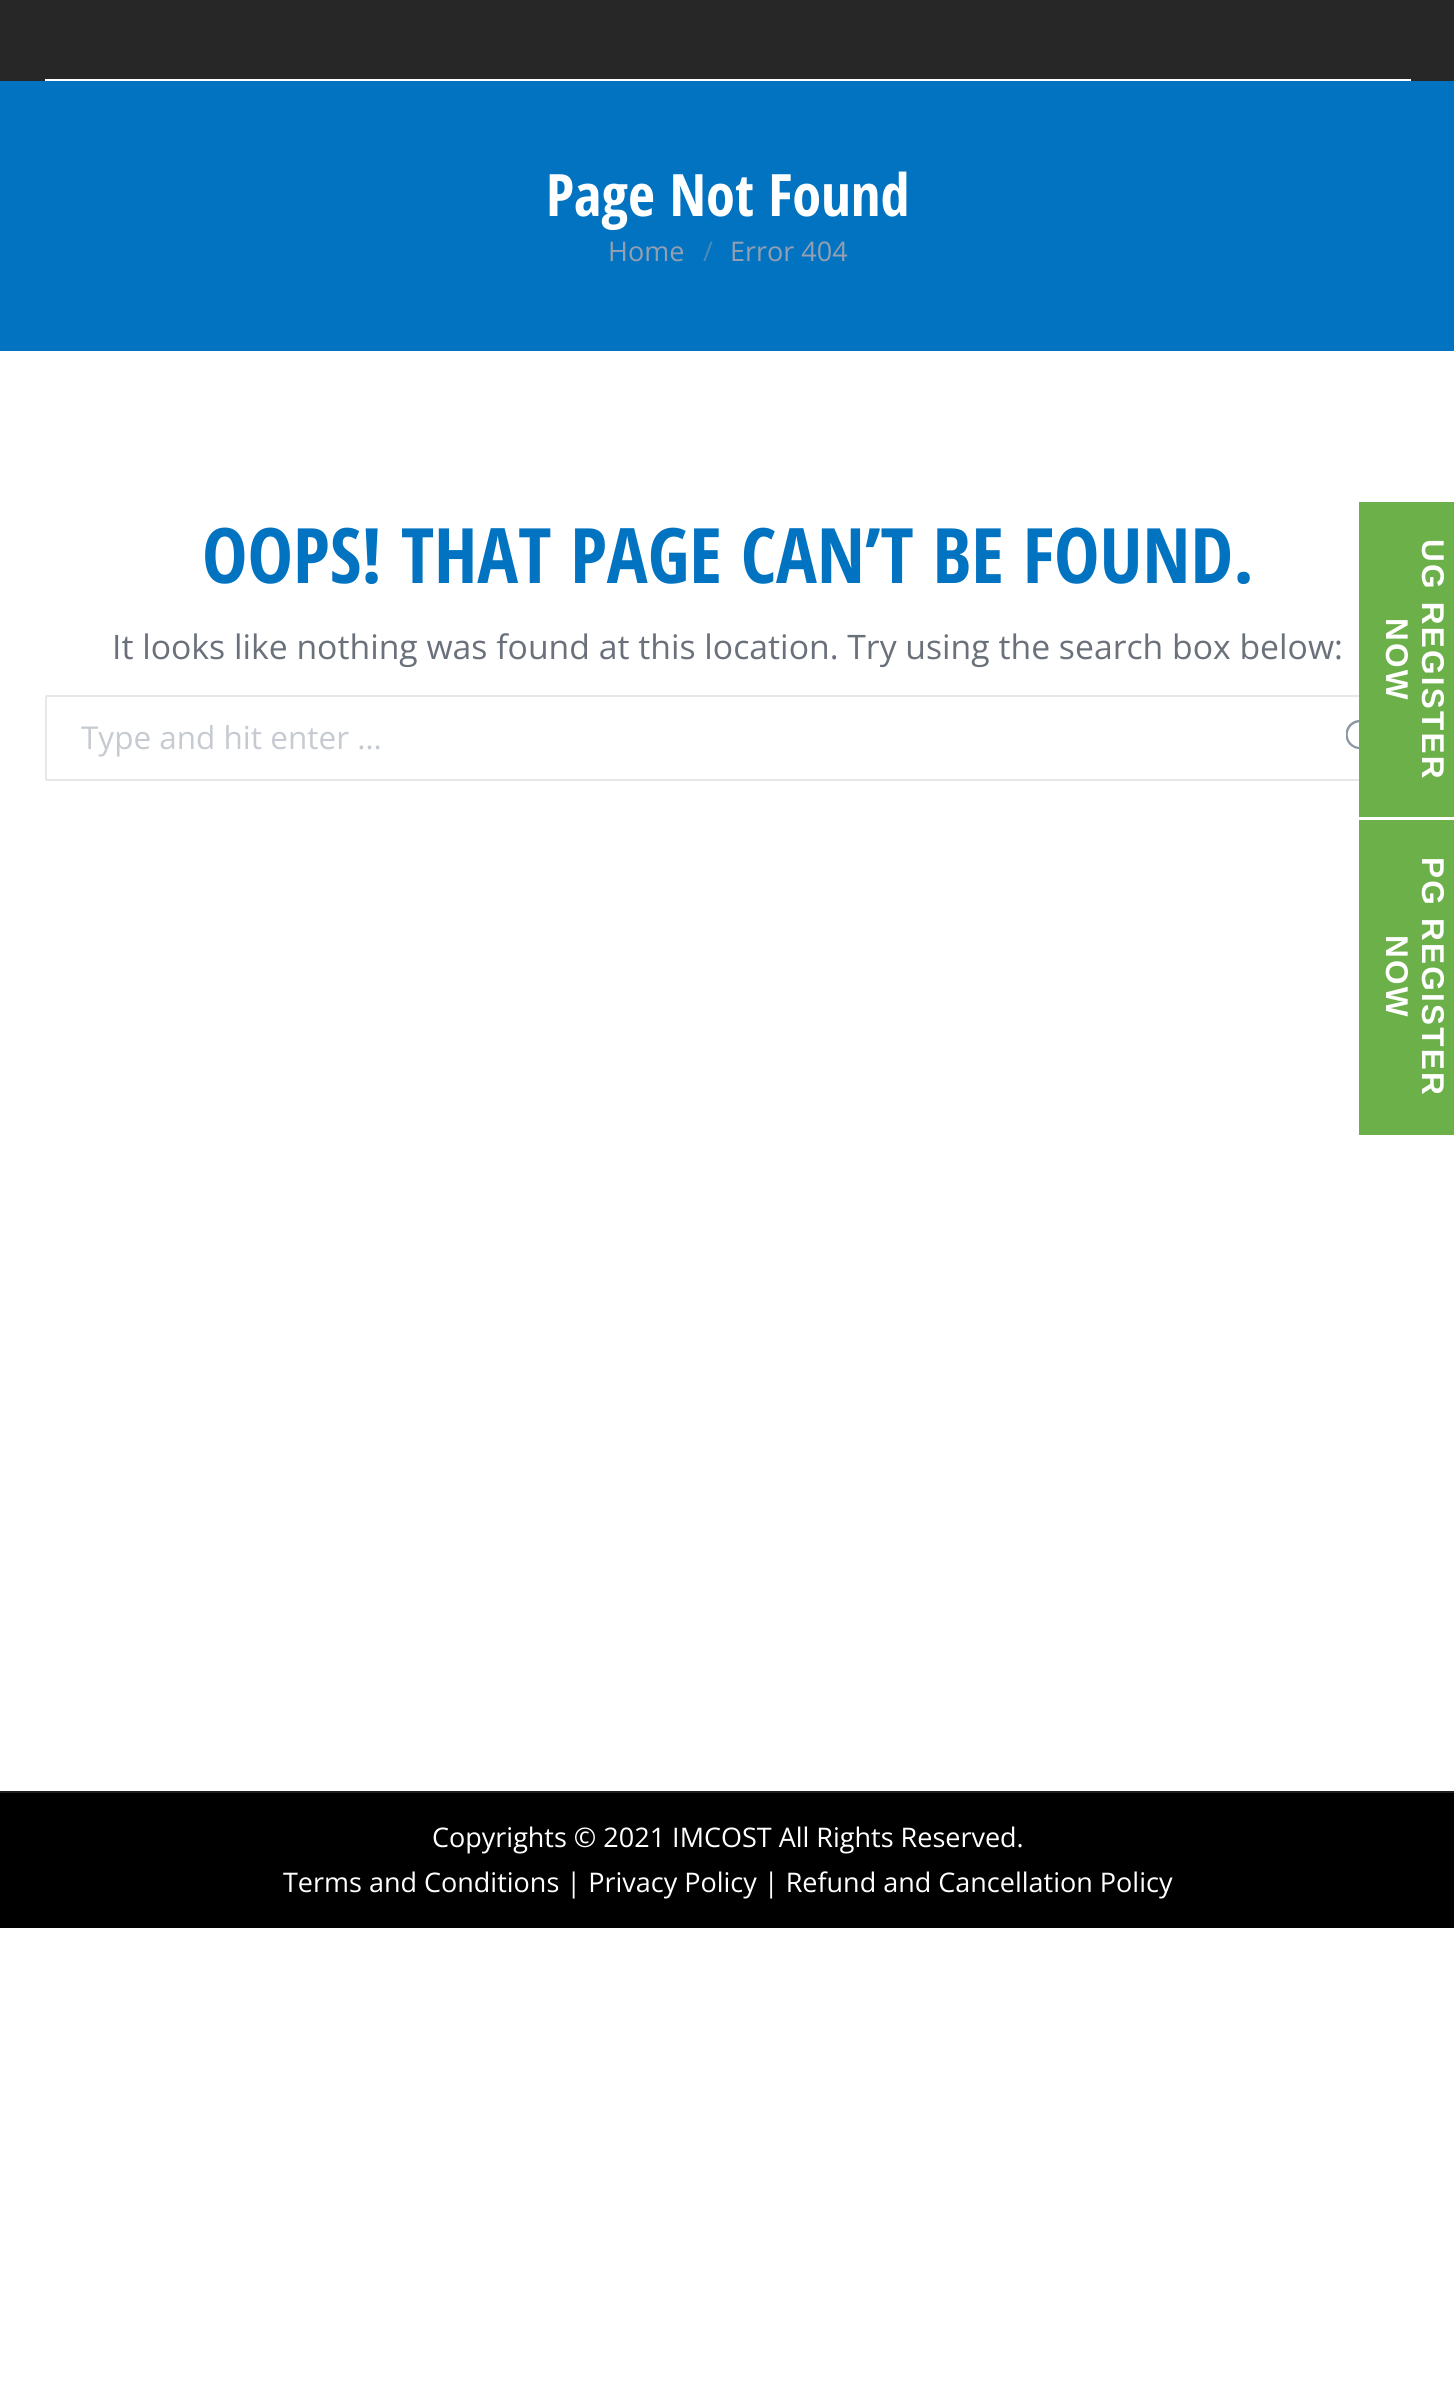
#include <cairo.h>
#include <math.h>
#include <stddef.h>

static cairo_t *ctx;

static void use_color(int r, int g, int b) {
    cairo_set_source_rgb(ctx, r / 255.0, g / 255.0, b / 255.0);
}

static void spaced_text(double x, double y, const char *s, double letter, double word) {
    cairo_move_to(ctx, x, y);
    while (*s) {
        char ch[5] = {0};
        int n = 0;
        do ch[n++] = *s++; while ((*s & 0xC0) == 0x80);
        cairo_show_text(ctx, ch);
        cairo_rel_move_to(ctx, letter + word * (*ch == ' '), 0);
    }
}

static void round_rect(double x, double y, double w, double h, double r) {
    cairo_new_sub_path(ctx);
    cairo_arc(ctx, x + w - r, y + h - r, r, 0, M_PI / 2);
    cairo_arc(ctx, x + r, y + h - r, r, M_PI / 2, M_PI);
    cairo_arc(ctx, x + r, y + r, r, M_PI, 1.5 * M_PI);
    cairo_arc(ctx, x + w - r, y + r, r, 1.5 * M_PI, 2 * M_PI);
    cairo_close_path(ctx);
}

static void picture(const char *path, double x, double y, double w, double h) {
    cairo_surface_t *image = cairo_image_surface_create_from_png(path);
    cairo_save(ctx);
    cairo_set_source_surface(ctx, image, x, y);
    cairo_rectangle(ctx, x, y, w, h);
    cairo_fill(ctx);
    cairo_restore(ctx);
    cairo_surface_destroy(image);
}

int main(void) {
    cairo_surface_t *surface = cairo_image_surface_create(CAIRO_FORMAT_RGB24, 1454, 2388);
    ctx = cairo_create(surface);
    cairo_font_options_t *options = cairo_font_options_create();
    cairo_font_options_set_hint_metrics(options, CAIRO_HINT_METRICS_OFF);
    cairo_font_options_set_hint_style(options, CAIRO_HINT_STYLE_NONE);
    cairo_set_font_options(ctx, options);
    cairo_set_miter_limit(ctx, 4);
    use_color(255, 255, 255);
    cairo_paint(ctx);
    use_color(39, 39, 39);
    cairo_rectangle(ctx, 0, 0, 1454, 81);
    cairo_fill(ctx);
    use_color(255, 255, 255);
    cairo_rectangle(ctx, 45, 79, 1366, 2);
    cairo_fill(ctx);
    use_color(1, 115, 192);
    cairo_rectangle(ctx, 0, 81, 1454, 270);
    cairo_fill(ctx);
    cairo_select_font_face(ctx, "Open Sans Condensed", CAIRO_FONT_SLANT_NORMAL, CAIRO_FONT_WEIGHT_BOLD);
    cairo_set_font_size(ctx, 58.5);
    use_color(255, 255, 255);
    cairo_move_to(ctx, 546, 216);
    cairo_show_text(ctx, "Page Not Found");
    cairo_select_font_face(ctx, "Open Sans", CAIRO_FONT_SLANT_NORMAL, CAIRO_FONT_WEIGHT_NORMAL);
    cairo_set_font_size(ctx, 27);
    use_color(148, 159, 178);
    cairo_move_to(ctx, 608, 261);
    cairo_show_text(ctx, "Home");
    use_color(75, 137, 185);
    cairo_move_to(ctx, 703, 261);
    cairo_show_text(ctx, "/");
    use_color(148, 159, 178);
    cairo_move_to(ctx, 730, 261);
    cairo_show_text(ctx, "Error 404");
    cairo_select_font_face(ctx, "Open Sans Condensed", CAIRO_FONT_SLANT_NORMAL, CAIRO_FONT_WEIGHT_BOLD);
    cairo_set_font_size(ctx, 76.5);
    use_color(1, 115, 192);
    cairo_move_to(ctx, 202, 583);
    cairo_show_text(ctx, "OOPS! THAT PAGE CAN’T BE FOUND.");
    cairo_select_font_face(ctx, "Open Sans", CAIRO_FONT_SLANT_NORMAL, CAIRO_FONT_WEIGHT_NORMAL);
    cairo_set_font_size(ctx, 33.75);
    use_color(106, 113, 123);
    cairo_move_to(ctx, 112, 659);
    cairo_show_text(ctx, "It looks like nothing was found at this location. Try using the search box below:");
    round_rect(46, 696, 1364, 84, 1);
    use_color(231, 231, 231);
    cairo_stroke(ctx);
    cairo_set_font_size(ctx, 31.5);
    use_color(198, 202, 209);
    cairo_move_to(ctx, 81, 749);
    cairo_show_text(ctx, "Type and hit enter …");
    picture("img1.png", 1346, 720, 13, 30);
    use_color(0, 0, 0);
    cairo_rectangle(ctx, 0, 1793, 1454, 135);
    cairo_fill(ctx);
    use_color(31, 31, 31);
    cairo_rectangle(ctx, 0, 1791, 1454, 2);
    cairo_fill(ctx);
    cairo_set_font_size(ctx, 27);
    use_color(255, 255, 255);
    cairo_move_to(ctx, 432, 1847);
    cairo_show_text(ctx, "Copyrights © 2021 IMCOST All Rights Reserved.");
    cairo_move_to(ctx, 283, 1892);
    cairo_show_text(ctx, "Terms and Conditions | Privacy Policy | Refund and Cancellation Policy");
    use_color(108, 176, 73);
    cairo_rectangle(ctx, 1359, 502, 95, 315);
    cairo_fill(ctx);
    cairo_select_font_face(ctx, "Liberation Sans", CAIRO_FONT_SLANT_NORMAL, CAIRO_FONT_WEIGHT_BOLD);
    cairo_set_font_size(ctx, 31.5);
    use_color(255, 255, 255);
    cairo_save(ctx);
    cairo_translate(ctx, 1386, 618);
    cairo_rotate(ctx, 90 * M_PI / 180);
    spaced_text(0, 0, "NOW", 2.25, 0);
    cairo_restore(ctx);
    cairo_save(ctx);
    cairo_translate(ctx, 1422, 539);
    cairo_rotate(ctx, 90 * M_PI / 180);
    spaced_text(0, 0, "UG REGISTER", 2.25, 0);
    cairo_restore(ctx);
    use_color(108, 176, 73);
    cairo_rectangle(ctx, 1359, 820, 95, 315);
    cairo_fill(ctx);
    use_color(255, 255, 255);
    cairo_save(ctx);
    cairo_translate(ctx, 1386, 935);
    cairo_rotate(ctx, 90 * M_PI / 180);
    spaced_text(0, 0, "NOW", 2.25, 0);
    cairo_restore(ctx);
    cairo_save(ctx);
    cairo_translate(ctx, 1422, 857);
    cairo_rotate(ctx, 90 * M_PI / 180);
    spaced_text(0, 0, "PG REGISTER", 2.25, 0);
    cairo_restore(ctx);
    cairo_surface_write_to_png(surface, "result.png");
    cairo_font_options_destroy(options);
    cairo_destroy(ctx);
    cairo_surface_destroy(surface);
    return 0;
}
